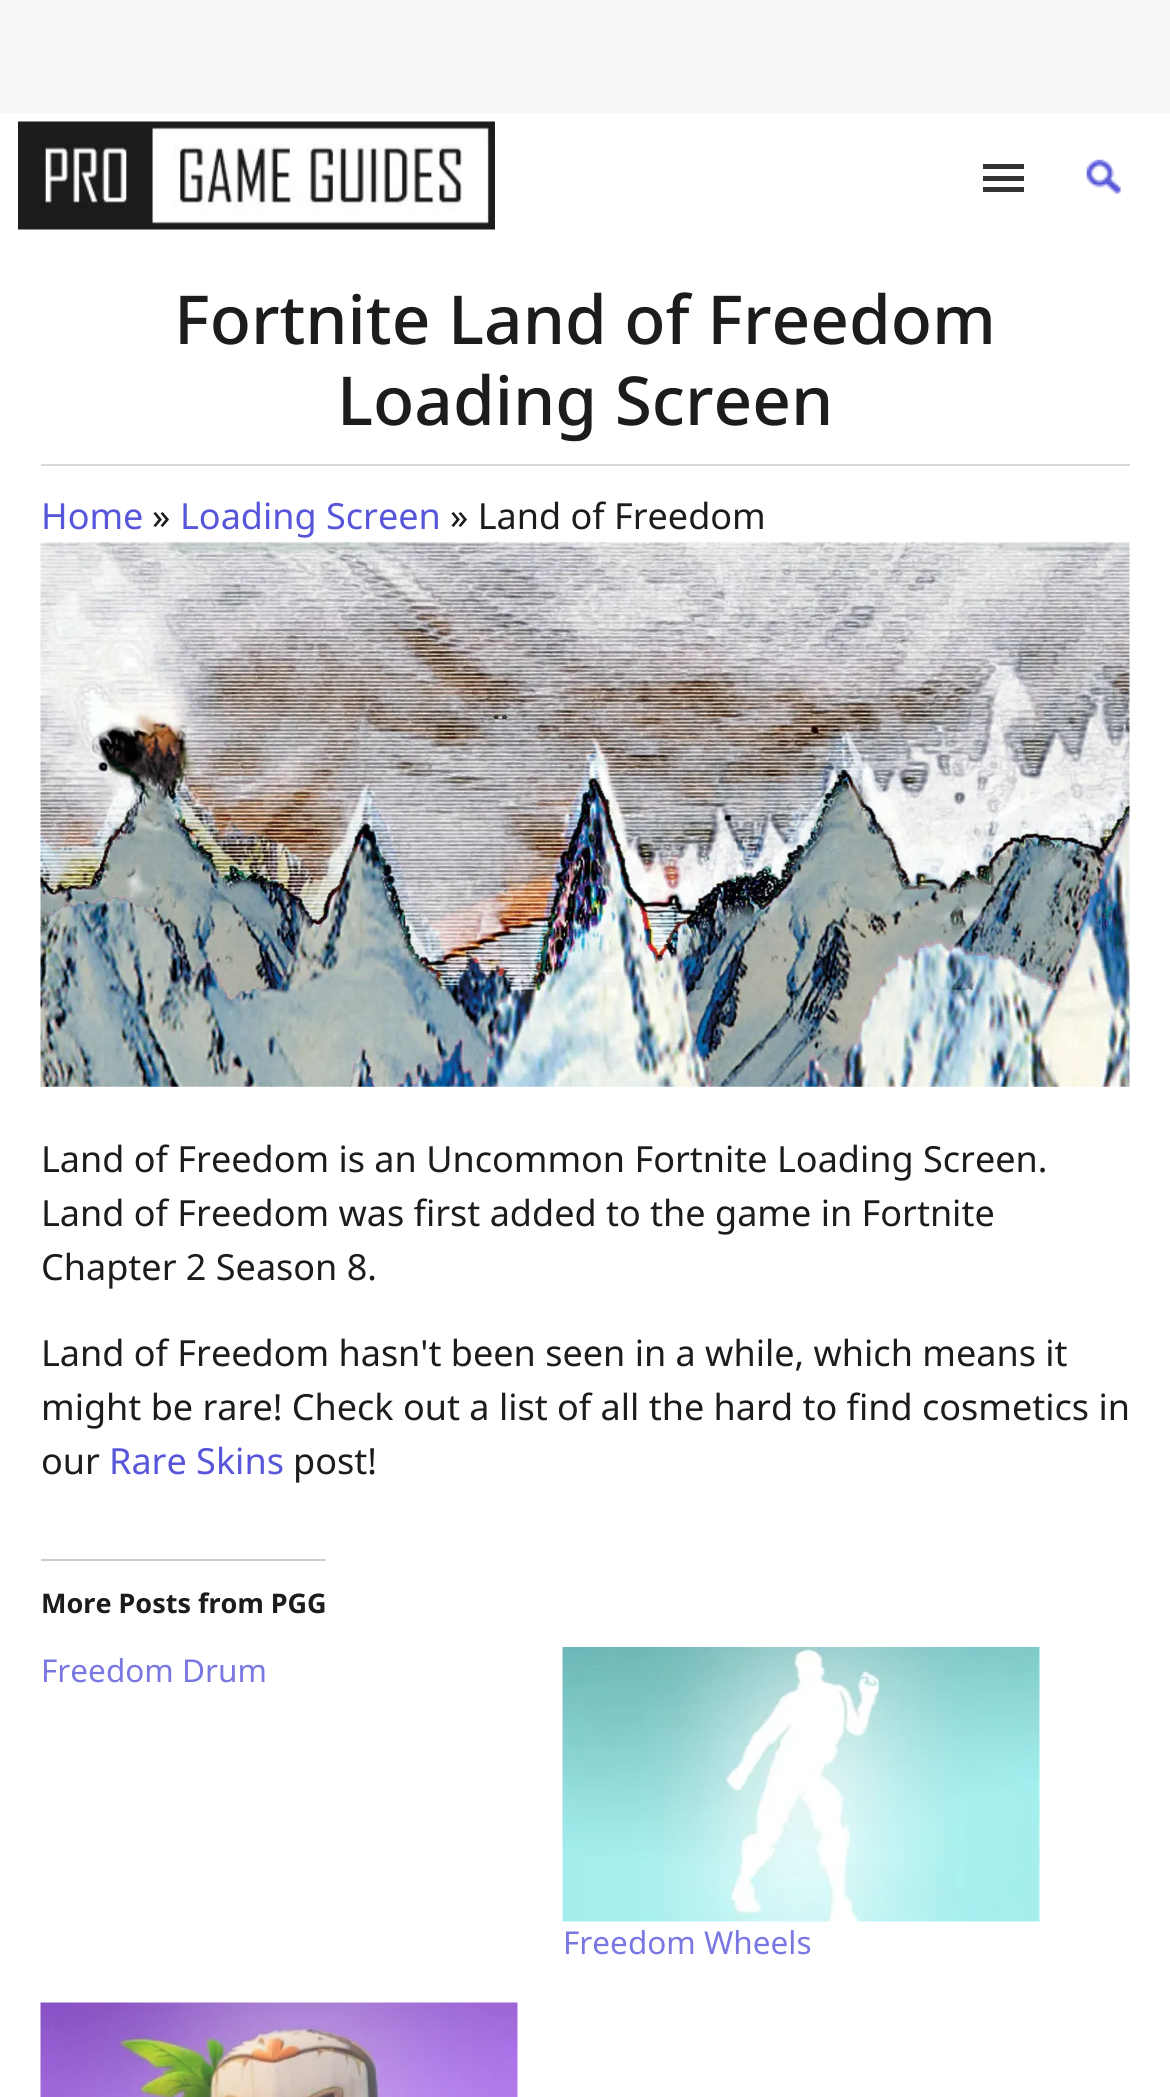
#include <cairo.h>
#include <math.h>
#include <stddef.h>

static cairo_t *ctx;

static void use_color(int r, int g, int b) {
    cairo_set_source_rgb(ctx, r / 255.0, g / 255.0, b / 255.0);
}

static void picture(const char *path, double x, double y, double w, double h) {
    cairo_surface_t *image = cairo_image_surface_create_from_png(path);
    cairo_save(ctx);
    cairo_set_source_surface(ctx, image, x, y);
    cairo_rectangle(ctx, x, y, w, h);
    cairo_fill(ctx);
    cairo_restore(ctx);
    cairo_surface_destroy(image);
}

int main(void) {
    cairo_surface_t *surface = cairo_image_surface_create(CAIRO_FORMAT_RGB24, 1170, 2097);
    ctx = cairo_create(surface);
    cairo_font_options_t *options = cairo_font_options_create();
    cairo_font_options_set_hint_metrics(options, CAIRO_HINT_METRICS_OFF);
    cairo_font_options_set_hint_style(options, CAIRO_HINT_STYLE_NONE);
    cairo_set_font_options(ctx, options);
    cairo_set_miter_limit(ctx, 4);
    use_color(247, 247, 247);
    cairo_paint(ctx);
    use_color(255, 255, 255);
    cairo_rectangle(ctx, 0, 113, 1170, 1984);
    cairo_fill(ctx);
    picture("img1.png", 18, 121, 477, 109);
    use_color(51, 51, 51);
    cairo_rectangle(ctx, 983, 176, 41, 5);
    cairo_fill(ctx);
    cairo_rectangle(ctx, 983, 164, 41, 5);
    cairo_fill(ctx);
    cairo_rectangle(ctx, 983, 187, 41, 5);
    cairo_fill(ctx);
    picture("img2.png", 1086, 159, 35, 35);
    use_color(216, 216, 216);
    cairo_rectangle(ctx, 41, 464, 1089, 2);
    cairo_fill(ctx);
    cairo_select_font_face(ctx, "Noto Sans Medium", CAIRO_FONT_SLANT_NORMAL, CAIRO_FONT_WEIGHT_NORMAL);
    cairo_set_font_size(ctx, 67.5);
    use_color(28, 28, 28);
    cairo_move_to(ctx, 174, 344);
    cairo_show_text(ctx, "Fortnite Land of Freedom");
    cairo_move_to(ctx, 337, 425);
    cairo_show_text(ctx, "Loading Screen");
    cairo_select_font_face(ctx, "Noto Sans", CAIRO_FONT_SLANT_NORMAL, CAIRO_FONT_WEIGHT_NORMAL);
    cairo_set_font_size(ctx, 36);
    use_color(87, 85, 217);
    cairo_move_to(ctx, 41, 529);
    cairo_show_text(ctx, "Home");
    use_color(28, 28, 28);
    cairo_move_to(ctx, 152, 529);
    cairo_show_text(ctx, "»");
    use_color(87, 85, 217);
    cairo_move_to(ctx, 180, 529);
    cairo_show_text(ctx, "Loading Screen");
    use_color(28, 28, 28);
    cairo_move_to(ctx, 450, 529);
    cairo_show_text(ctx, "» Land of Freedom");
    picture("img3.png", 40, 542, 1090, 545);
    cairo_move_to(ctx, 41, 1172);
    cairo_show_text(ctx, "Land of Freedom is an Uncommon Fortnite Loading Screen.");
    cairo_move_to(ctx, 41, 1226);
    cairo_show_text(ctx, "Land of Freedom was first added to the game in Fortnite");
    cairo_move_to(ctx, 41, 1280);
    cairo_show_text(ctx, "Chapter 2 Season 8.");
    cairo_move_to(ctx, 41, 1366);
    cairo_show_text(ctx, "Land of Freedom hasn't been seen in a while, which means it");
    cairo_move_to(ctx, 41, 1420);
    cairo_show_text(ctx, "might be rare! Check out a list of all the hard to find cosmetics in");
    cairo_move_to(ctx, 41, 1474);
    cairo_show_text(ctx, "our");
    use_color(87, 85, 217);
    cairo_move_to(ctx, 109, 1474);
    cairo_show_text(ctx, "Rare Skins");
    use_color(28, 28, 28);
    cairo_move_to(ctx, 293, 1474);
    cairo_show_text(ctx, "post!");
    use_color(204, 204, 204);
    cairo_rectangle(ctx, 41, 1559, 285, 2);
    cairo_fill(ctx);
    cairo_select_font_face(ctx, "Noto Sans", CAIRO_FONT_SLANT_NORMAL, CAIRO_FONT_WEIGHT_BOLD);
    cairo_set_font_size(ctx, 27);
    use_color(28, 28, 28);
    cairo_move_to(ctx, 41, 1613);
    cairo_show_text(ctx, "More Posts from PGG");
    cairo_select_font_face(ctx, "Noto Sans", CAIRO_FONT_SLANT_NORMAL, CAIRO_FONT_WEIGHT_NORMAL);
    cairo_set_font_size(ctx, 31.5);
    use_color(121, 119, 225);
    cairo_move_to(ctx, 41, 1682);
    cairo_show_text(ctx, "Freedom Drum");
    picture("img4.png", 562, 1647, 478, 275);
    cairo_move_to(ctx, 563, 1954);
    cairo_show_text(ctx, "Freedom Wheels");
    picture("img5.png", 40, 2002, 478, 95);
    cairo_surface_write_to_png(surface, "result.png");
    cairo_font_options_destroy(options);
    cairo_destroy(ctx);
    cairo_surface_destroy(surface);
    return 0;
}
